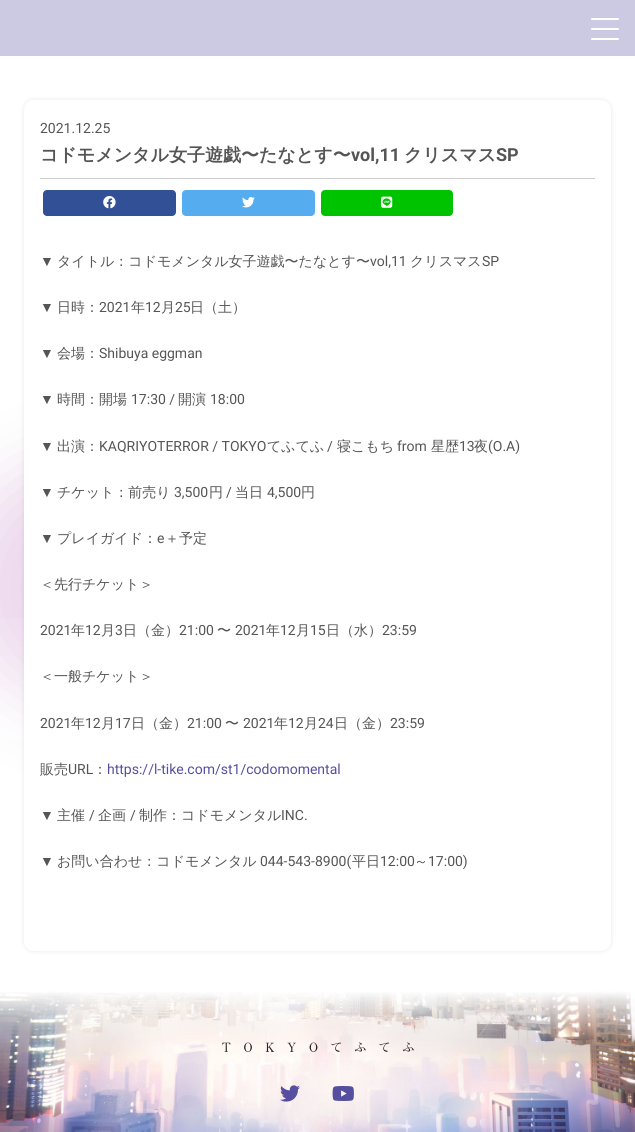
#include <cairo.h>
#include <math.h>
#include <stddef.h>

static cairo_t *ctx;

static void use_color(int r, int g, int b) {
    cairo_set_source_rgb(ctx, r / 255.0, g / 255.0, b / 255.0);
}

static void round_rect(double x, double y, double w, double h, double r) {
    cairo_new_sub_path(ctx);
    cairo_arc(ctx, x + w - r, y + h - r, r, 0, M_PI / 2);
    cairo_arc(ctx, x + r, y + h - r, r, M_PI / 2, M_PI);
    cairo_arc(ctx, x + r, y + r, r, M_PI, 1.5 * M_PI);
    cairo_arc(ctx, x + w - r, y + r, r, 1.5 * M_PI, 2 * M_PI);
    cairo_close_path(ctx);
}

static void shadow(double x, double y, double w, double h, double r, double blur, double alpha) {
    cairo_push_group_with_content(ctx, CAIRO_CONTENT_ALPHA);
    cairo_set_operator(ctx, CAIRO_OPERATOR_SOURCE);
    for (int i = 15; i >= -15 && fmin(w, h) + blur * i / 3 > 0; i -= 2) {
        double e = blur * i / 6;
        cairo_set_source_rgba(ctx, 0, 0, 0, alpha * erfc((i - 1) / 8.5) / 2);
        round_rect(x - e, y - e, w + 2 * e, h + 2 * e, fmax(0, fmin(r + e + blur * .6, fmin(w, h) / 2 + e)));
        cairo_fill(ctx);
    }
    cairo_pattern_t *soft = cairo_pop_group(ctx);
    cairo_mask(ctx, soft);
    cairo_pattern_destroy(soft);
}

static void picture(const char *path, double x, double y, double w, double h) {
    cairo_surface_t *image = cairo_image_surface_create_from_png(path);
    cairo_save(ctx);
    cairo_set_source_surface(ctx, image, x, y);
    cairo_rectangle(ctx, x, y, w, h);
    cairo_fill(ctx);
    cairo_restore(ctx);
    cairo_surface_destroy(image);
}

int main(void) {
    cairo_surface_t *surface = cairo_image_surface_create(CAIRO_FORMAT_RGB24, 635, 1132);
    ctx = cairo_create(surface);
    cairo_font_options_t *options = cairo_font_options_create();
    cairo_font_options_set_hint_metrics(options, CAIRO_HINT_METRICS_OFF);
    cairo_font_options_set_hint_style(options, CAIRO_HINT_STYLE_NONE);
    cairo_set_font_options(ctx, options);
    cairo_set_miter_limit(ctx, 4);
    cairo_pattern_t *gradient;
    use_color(255, 255, 255);
    cairo_paint(ctx);
    use_color(204, 202, 226);
    cairo_rectangle(ctx, 0, 0, 635, 56);
    cairo_fill(ctx);
    use_color(255, 255, 255);
    round_rect(591, 18, 28, 2, 1);
    cairo_fill(ctx);
    round_rect(591, 28, 28, 2, 1);
    cairo_fill(ctx);
    round_rect(591, 38, 28, 2, 1);
    cairo_fill(ctx);
    use_color(237, 217, 237);
    shadow(-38, 461, 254, 254, 127, 32, 1);
    gradient = cairo_pattern_create_linear(318, 991, 318, 591);
    cairo_pattern_add_color_stop_rgba(gradient, 0, 1, 1, 1, 1);
    cairo_pattern_add_color_stop_rgba(gradient, 1, 1, 1, 1, 0);
    cairo_set_source(ctx, gradient);
    cairo_pattern_destroy(gradient);
    cairo_rectangle(ctx, 0, 618, 199, 122);
    cairo_fill(ctx);
    use_color(0, 0, 0);
    shadow(24, 100, 587, 851, 10, 2.5, 0.1);
    use_color(255, 255, 255);
    round_rect(24, 100, 587, 851, 10);
    cairo_fill(ctx);
    cairo_select_font_face(ctx, "Roboto", CAIRO_FONT_SLANT_NORMAL, CAIRO_FONT_WEIGHT_NORMAL);
    cairo_set_font_size(ctx, 14);
    use_color(85, 85, 85);
    cairo_move_to(ctx, 40, 133);
    cairo_show_text(ctx, "2021.12.25");
    use_color(204, 204, 204);
    cairo_rectangle(ctx, 40, 178, 555, 1);
    cairo_fill(ctx);
    cairo_select_font_face(ctx, "WenQuanYi Zen Hei", CAIRO_FONT_SLANT_NORMAL, CAIRO_FONT_WEIGHT_BOLD);
    cairo_set_font_size(ctx, 18);
    use_color(85, 85, 85);
    cairo_move_to(ctx, 40, 161);
    cairo_show_text(ctx, "コドモメンタル女子遊戯〜たなとす〜");
    cairo_select_font_face(ctx, "Roboto", CAIRO_FONT_SLANT_NORMAL, CAIRO_FONT_WEIGHT_BOLD);
    cairo_move_to(ctx, 351, 161);
    cairo_show_text(ctx, "vol,11");
    cairo_select_font_face(ctx, "WenQuanYi Zen Hei", CAIRO_FONT_SLANT_NORMAL, CAIRO_FONT_WEIGHT_BOLD);
    cairo_move_to(ctx, 404, 161);
    cairo_show_text(ctx, "クリスマス");
    cairo_select_font_face(ctx, "Roboto", CAIRO_FONT_SLANT_NORMAL, CAIRO_FONT_WEIGHT_BOLD);
    cairo_move_to(ctx, 496, 161);
    cairo_show_text(ctx, "SP");
    use_color(49, 80, 150);
    round_rect(43, 190, 133, 26, 4);
    cairo_fill(ctx);
    picture("img1.png", 103, 196, 13, 13);
    use_color(85, 172, 238);
    round_rect(182, 190, 133, 26, 4);
    cairo_fill(ctx);
    picture("img2.png", 242, 197, 13, 11);
    use_color(0, 195, 0);
    round_rect(321, 190, 132, 26, 4);
    cairo_fill(ctx);
    picture("img3.png", 381, 196, 12, 12);
    cairo_select_font_face(ctx, "Liberation Sans", CAIRO_FONT_SLANT_NORMAL, CAIRO_FONT_WEIGHT_NORMAL);
    cairo_set_font_size(ctx, 14);
    use_color(85, 85, 85);
    cairo_move_to(ctx, 40, 266);
    cairo_show_text(ctx, "▼");
    cairo_select_font_face(ctx, "WenQuanYi Zen Hei Medium", CAIRO_FONT_SLANT_NORMAL, CAIRO_FONT_WEIGHT_NORMAL);
    cairo_move_to(ctx, 57, 266);
    cairo_show_text(ctx, "タイトル：コドモメンタル女子遊戯〜たなとす〜");
    cairo_select_font_face(ctx, "Roboto", CAIRO_FONT_SLANT_NORMAL, CAIRO_FONT_WEIGHT_NORMAL);
    cairo_move_to(ctx, 370, 266);
    cairo_show_text(ctx, "vol,11");
    cairo_select_font_face(ctx, "WenQuanYi Zen Hei Medium", CAIRO_FONT_SLANT_NORMAL, CAIRO_FONT_WEIGHT_NORMAL);
    cairo_move_to(ctx, 410, 266);
    cairo_show_text(ctx, "クリスマス");
    cairo_select_font_face(ctx, "Roboto", CAIRO_FONT_SLANT_NORMAL, CAIRO_FONT_WEIGHT_NORMAL);
    cairo_move_to(ctx, 482, 266);
    cairo_show_text(ctx, "SP");
    cairo_select_font_face(ctx, "Liberation Sans", CAIRO_FONT_SLANT_NORMAL, CAIRO_FONT_WEIGHT_NORMAL);
    cairo_move_to(ctx, 40, 312);
    cairo_show_text(ctx, "▼");
    cairo_select_font_face(ctx, "WenQuanYi Zen Hei Medium", CAIRO_FONT_SLANT_NORMAL, CAIRO_FONT_WEIGHT_NORMAL);
    cairo_move_to(ctx, 57, 312);
    cairo_show_text(ctx, "日時：");
    cairo_select_font_face(ctx, "Roboto", CAIRO_FONT_SLANT_NORMAL, CAIRO_FONT_WEIGHT_NORMAL);
    cairo_move_to(ctx, 99, 312);
    cairo_show_text(ctx, "2021");
    cairo_select_font_face(ctx, "WenQuanYi Zen Hei Medium", CAIRO_FONT_SLANT_NORMAL, CAIRO_FONT_WEIGHT_NORMAL);
    cairo_move_to(ctx, 131, 312);
    cairo_show_text(ctx, "年");
    cairo_select_font_face(ctx, "Roboto", CAIRO_FONT_SLANT_NORMAL, CAIRO_FONT_WEIGHT_NORMAL);
    cairo_move_to(ctx, 145, 312);
    cairo_show_text(ctx, "12");
    cairo_select_font_face(ctx, "WenQuanYi Zen Hei Medium", CAIRO_FONT_SLANT_NORMAL, CAIRO_FONT_WEIGHT_NORMAL);
    cairo_move_to(ctx, 161, 312);
    cairo_show_text(ctx, "月");
    cairo_select_font_face(ctx, "Roboto", CAIRO_FONT_SLANT_NORMAL, CAIRO_FONT_WEIGHT_NORMAL);
    cairo_move_to(ctx, 175, 312);
    cairo_show_text(ctx, "25");
    cairo_select_font_face(ctx, "WenQuanYi Zen Hei Medium", CAIRO_FONT_SLANT_NORMAL, CAIRO_FONT_WEIGHT_NORMAL);
    cairo_move_to(ctx, 190, 312);
    cairo_show_text(ctx, "日（土）");
    cairo_select_font_face(ctx, "Liberation Sans", CAIRO_FONT_SLANT_NORMAL, CAIRO_FONT_WEIGHT_NORMAL);
    cairo_move_to(ctx, 40, 358);
    cairo_show_text(ctx, "▼");
    cairo_select_font_face(ctx, "WenQuanYi Zen Hei Medium", CAIRO_FONT_SLANT_NORMAL, CAIRO_FONT_WEIGHT_NORMAL);
    cairo_move_to(ctx, 57, 358);
    cairo_show_text(ctx, "会場：");
    cairo_select_font_face(ctx, "Roboto", CAIRO_FONT_SLANT_NORMAL, CAIRO_FONT_WEIGHT_NORMAL);
    cairo_move_to(ctx, 99, 358);
    cairo_show_text(ctx, "Shibuya eggman");
    cairo_select_font_face(ctx, "Liberation Sans", CAIRO_FONT_SLANT_NORMAL, CAIRO_FONT_WEIGHT_NORMAL);
    cairo_move_to(ctx, 40, 404);
    cairo_show_text(ctx, "▼");
    cairo_select_font_face(ctx, "WenQuanYi Zen Hei Medium", CAIRO_FONT_SLANT_NORMAL, CAIRO_FONT_WEIGHT_NORMAL);
    cairo_move_to(ctx, 57, 404);
    cairo_show_text(ctx, "時間：開場");
    cairo_select_font_face(ctx, "Roboto", CAIRO_FONT_SLANT_NORMAL, CAIRO_FONT_WEIGHT_NORMAL);
    cairo_move_to(ctx, 131, 404);
    cairo_show_text(ctx, "17:30 /");
    cairo_select_font_face(ctx, "WenQuanYi Zen Hei Medium", CAIRO_FONT_SLANT_NORMAL, CAIRO_FONT_WEIGHT_NORMAL);
    cairo_move_to(ctx, 178, 404);
    cairo_show_text(ctx, "開演");
    cairo_select_font_face(ctx, "Roboto", CAIRO_FONT_SLANT_NORMAL, CAIRO_FONT_WEIGHT_NORMAL);
    cairo_move_to(ctx, 210, 404);
    cairo_show_text(ctx, "18:00");
    cairo_select_font_face(ctx, "Liberation Sans", CAIRO_FONT_SLANT_NORMAL, CAIRO_FONT_WEIGHT_NORMAL);
    cairo_move_to(ctx, 40, 451);
    cairo_show_text(ctx, "▼");
    cairo_select_font_face(ctx, "WenQuanYi Zen Hei Medium", CAIRO_FONT_SLANT_NORMAL, CAIRO_FONT_WEIGHT_NORMAL);
    cairo_move_to(ctx, 57, 451);
    cairo_show_text(ctx, "出演：");
    cairo_select_font_face(ctx, "Roboto", CAIRO_FONT_SLANT_NORMAL, CAIRO_FONT_WEIGHT_NORMAL);
    cairo_move_to(ctx, 99, 451);
    cairo_show_text(ctx, "KAQRIYOTERROR / TOKYO");
    cairo_select_font_face(ctx, "WenQuanYi Zen Hei Medium", CAIRO_FONT_SLANT_NORMAL, CAIRO_FONT_WEIGHT_NORMAL);
    cairo_move_to(ctx, 267, 451);
    cairo_show_text(ctx, "てふてふ");
    cairo_select_font_face(ctx, "Roboto", CAIRO_FONT_SLANT_NORMAL, CAIRO_FONT_WEIGHT_NORMAL);
    cairo_move_to(ctx, 327, 451);
    cairo_show_text(ctx, "/");
    cairo_select_font_face(ctx, "WenQuanYi Zen Hei Medium", CAIRO_FONT_SLANT_NORMAL, CAIRO_FONT_WEIGHT_NORMAL);
    cairo_move_to(ctx, 337, 451);
    cairo_show_text(ctx, "寝こもち");
    cairo_select_font_face(ctx, "Roboto", CAIRO_FONT_SLANT_NORMAL, CAIRO_FONT_WEIGHT_NORMAL);
    cairo_move_to(ctx, 397, 451);
    cairo_show_text(ctx, "from");
    cairo_select_font_face(ctx, "WenQuanYi Zen Hei Medium", CAIRO_FONT_SLANT_NORMAL, CAIRO_FONT_WEIGHT_NORMAL);
    cairo_move_to(ctx, 431, 451);
    cairo_show_text(ctx, "星歴");
    cairo_select_font_face(ctx, "Roboto", CAIRO_FONT_SLANT_NORMAL, CAIRO_FONT_WEIGHT_NORMAL);
    cairo_move_to(ctx, 459, 451);
    cairo_show_text(ctx, "13");
    cairo_select_font_face(ctx, "WenQuanYi Zen Hei Medium", CAIRO_FONT_SLANT_NORMAL, CAIRO_FONT_WEIGHT_NORMAL);
    cairo_move_to(ctx, 474, 451);
    cairo_show_text(ctx, "夜");
    cairo_select_font_face(ctx, "Roboto", CAIRO_FONT_SLANT_NORMAL, CAIRO_FONT_WEIGHT_NORMAL);
    cairo_move_to(ctx, 488, 451);
    cairo_show_text(ctx, "(O.A)");
    cairo_select_font_face(ctx, "Liberation Sans", CAIRO_FONT_SLANT_NORMAL, CAIRO_FONT_WEIGHT_NORMAL);
    cairo_move_to(ctx, 40, 497);
    cairo_show_text(ctx, "▼");
    cairo_select_font_face(ctx, "WenQuanYi Zen Hei Medium", CAIRO_FONT_SLANT_NORMAL, CAIRO_FONT_WEIGHT_NORMAL);
    cairo_move_to(ctx, 57, 497);
    cairo_show_text(ctx, "チケット：前売り");
    cairo_select_font_face(ctx, "Roboto", CAIRO_FONT_SLANT_NORMAL, CAIRO_FONT_WEIGHT_NORMAL);
    cairo_move_to(ctx, 174, 497);
    cairo_show_text(ctx, "3,500");
    cairo_select_font_face(ctx, "WenQuanYi Zen Hei Medium", CAIRO_FONT_SLANT_NORMAL, CAIRO_FONT_WEIGHT_NORMAL);
    cairo_move_to(ctx, 209, 497);
    cairo_show_text(ctx, "円");
    cairo_select_font_face(ctx, "Roboto", CAIRO_FONT_SLANT_NORMAL, CAIRO_FONT_WEIGHT_NORMAL);
    cairo_move_to(ctx, 226, 497);
    cairo_show_text(ctx, "/");
    cairo_select_font_face(ctx, "WenQuanYi Zen Hei Medium", CAIRO_FONT_SLANT_NORMAL, CAIRO_FONT_WEIGHT_NORMAL);
    cairo_move_to(ctx, 235, 497);
    cairo_show_text(ctx, "当日");
    cairo_select_font_face(ctx, "Roboto", CAIRO_FONT_SLANT_NORMAL, CAIRO_FONT_WEIGHT_NORMAL);
    cairo_move_to(ctx, 267, 497);
    cairo_show_text(ctx, "4,500");
    cairo_select_font_face(ctx, "WenQuanYi Zen Hei Medium", CAIRO_FONT_SLANT_NORMAL, CAIRO_FONT_WEIGHT_NORMAL);
    cairo_move_to(ctx, 301, 497);
    cairo_show_text(ctx, "円");
    cairo_select_font_face(ctx, "Liberation Sans", CAIRO_FONT_SLANT_NORMAL, CAIRO_FONT_WEIGHT_NORMAL);
    cairo_move_to(ctx, 40, 543);
    cairo_show_text(ctx, "▼");
    cairo_select_font_face(ctx, "WenQuanYi Zen Hei Medium", CAIRO_FONT_SLANT_NORMAL, CAIRO_FONT_WEIGHT_NORMAL);
    cairo_move_to(ctx, 57, 543);
    cairo_show_text(ctx, "プレイガイド：");
    cairo_select_font_face(ctx, "Roboto", CAIRO_FONT_SLANT_NORMAL, CAIRO_FONT_WEIGHT_NORMAL);
    cairo_move_to(ctx, 157, 543);
    cairo_show_text(ctx, "e");
    cairo_select_font_face(ctx, "WenQuanYi Zen Hei Medium", CAIRO_FONT_SLANT_NORMAL, CAIRO_FONT_WEIGHT_NORMAL);
    cairo_move_to(ctx, 165, 543);
    cairo_show_text(ctx, "＋予定");
    cairo_move_to(ctx, 40, 589);
    cairo_show_text(ctx, "＜先行チケット＞");
    cairo_select_font_face(ctx, "Roboto", CAIRO_FONT_SLANT_NORMAL, CAIRO_FONT_WEIGHT_NORMAL);
    cairo_move_to(ctx, 40, 635);
    cairo_show_text(ctx, "2021");
    cairo_select_font_face(ctx, "WenQuanYi Zen Hei Medium", CAIRO_FONT_SLANT_NORMAL, CAIRO_FONT_WEIGHT_NORMAL);
    cairo_move_to(ctx, 71, 635);
    cairo_show_text(ctx, "年");
    cairo_select_font_face(ctx, "Roboto", CAIRO_FONT_SLANT_NORMAL, CAIRO_FONT_WEIGHT_NORMAL);
    cairo_move_to(ctx, 85, 635);
    cairo_show_text(ctx, "12");
    cairo_select_font_face(ctx, "WenQuanYi Zen Hei Medium", CAIRO_FONT_SLANT_NORMAL, CAIRO_FONT_WEIGHT_NORMAL);
    cairo_move_to(ctx, 101, 635);
    cairo_show_text(ctx, "月");
    cairo_select_font_face(ctx, "Roboto", CAIRO_FONT_SLANT_NORMAL, CAIRO_FONT_WEIGHT_NORMAL);
    cairo_move_to(ctx, 115, 635);
    cairo_show_text(ctx, "3");
    cairo_select_font_face(ctx, "WenQuanYi Zen Hei Medium", CAIRO_FONT_SLANT_NORMAL, CAIRO_FONT_WEIGHT_NORMAL);
    cairo_move_to(ctx, 123, 635);
    cairo_show_text(ctx, "日（金）");
    cairo_select_font_face(ctx, "Roboto", CAIRO_FONT_SLANT_NORMAL, CAIRO_FONT_WEIGHT_NORMAL);
    cairo_move_to(ctx, 179, 635);
    cairo_show_text(ctx, "21:00");
    cairo_select_font_face(ctx, "WenQuanYi Zen Hei Medium", CAIRO_FONT_SLANT_NORMAL, CAIRO_FONT_WEIGHT_NORMAL);
    cairo_move_to(ctx, 217, 635);
    cairo_show_text(ctx, "〜");
    cairo_select_font_face(ctx, "Roboto", CAIRO_FONT_SLANT_NORMAL, CAIRO_FONT_WEIGHT_NORMAL);
    cairo_move_to(ctx, 235, 635);
    cairo_show_text(ctx, "2021");
    cairo_select_font_face(ctx, "WenQuanYi Zen Hei Medium", CAIRO_FONT_SLANT_NORMAL, CAIRO_FONT_WEIGHT_NORMAL);
    cairo_move_to(ctx, 266, 635);
    cairo_show_text(ctx, "年");
    cairo_select_font_face(ctx, "Roboto", CAIRO_FONT_SLANT_NORMAL, CAIRO_FONT_WEIGHT_NORMAL);
    cairo_move_to(ctx, 280, 635);
    cairo_show_text(ctx, "12");
    cairo_select_font_face(ctx, "WenQuanYi Zen Hei Medium", CAIRO_FONT_SLANT_NORMAL, CAIRO_FONT_WEIGHT_NORMAL);
    cairo_move_to(ctx, 296, 635);
    cairo_show_text(ctx, "月");
    cairo_select_font_face(ctx, "Roboto", CAIRO_FONT_SLANT_NORMAL, CAIRO_FONT_WEIGHT_NORMAL);
    cairo_move_to(ctx, 310, 635);
    cairo_show_text(ctx, "15");
    cairo_select_font_face(ctx, "WenQuanYi Zen Hei Medium", CAIRO_FONT_SLANT_NORMAL, CAIRO_FONT_WEIGHT_NORMAL);
    cairo_move_to(ctx, 326, 635);
    cairo_show_text(ctx, "日（水）");
    cairo_select_font_face(ctx, "Roboto", CAIRO_FONT_SLANT_NORMAL, CAIRO_FONT_WEIGHT_NORMAL);
    cairo_move_to(ctx, 382, 635);
    cairo_show_text(ctx, "23:59");
    cairo_select_font_face(ctx, "WenQuanYi Zen Hei Medium", CAIRO_FONT_SLANT_NORMAL, CAIRO_FONT_WEIGHT_NORMAL);
    cairo_move_to(ctx, 40, 681);
    cairo_show_text(ctx, "＜一般チケット＞");
    cairo_select_font_face(ctx, "Roboto", CAIRO_FONT_SLANT_NORMAL, CAIRO_FONT_WEIGHT_NORMAL);
    cairo_move_to(ctx, 40, 728);
    cairo_show_text(ctx, "2021");
    cairo_select_font_face(ctx, "WenQuanYi Zen Hei Medium", CAIRO_FONT_SLANT_NORMAL, CAIRO_FONT_WEIGHT_NORMAL);
    cairo_move_to(ctx, 71, 728);
    cairo_show_text(ctx, "年");
    cairo_select_font_face(ctx, "Roboto", CAIRO_FONT_SLANT_NORMAL, CAIRO_FONT_WEIGHT_NORMAL);
    cairo_move_to(ctx, 85, 728);
    cairo_show_text(ctx, "12");
    cairo_select_font_face(ctx, "WenQuanYi Zen Hei Medium", CAIRO_FONT_SLANT_NORMAL, CAIRO_FONT_WEIGHT_NORMAL);
    cairo_move_to(ctx, 101, 728);
    cairo_show_text(ctx, "月");
    cairo_select_font_face(ctx, "Roboto", CAIRO_FONT_SLANT_NORMAL, CAIRO_FONT_WEIGHT_NORMAL);
    cairo_move_to(ctx, 115, 728);
    cairo_show_text(ctx, "17");
    cairo_select_font_face(ctx, "WenQuanYi Zen Hei Medium", CAIRO_FONT_SLANT_NORMAL, CAIRO_FONT_WEIGHT_NORMAL);
    cairo_move_to(ctx, 131, 728);
    cairo_show_text(ctx, "日（金）");
    cairo_select_font_face(ctx, "Roboto", CAIRO_FONT_SLANT_NORMAL, CAIRO_FONT_WEIGHT_NORMAL);
    cairo_move_to(ctx, 187, 728);
    cairo_show_text(ctx, "21:00");
    cairo_select_font_face(ctx, "WenQuanYi Zen Hei Medium", CAIRO_FONT_SLANT_NORMAL, CAIRO_FONT_WEIGHT_NORMAL);
    cairo_move_to(ctx, 225, 728);
    cairo_show_text(ctx, "〜");
    cairo_select_font_face(ctx, "Roboto", CAIRO_FONT_SLANT_NORMAL, CAIRO_FONT_WEIGHT_NORMAL);
    cairo_move_to(ctx, 243, 728);
    cairo_show_text(ctx, "2021");
    cairo_select_font_face(ctx, "WenQuanYi Zen Hei Medium", CAIRO_FONT_SLANT_NORMAL, CAIRO_FONT_WEIGHT_NORMAL);
    cairo_move_to(ctx, 274, 728);
    cairo_show_text(ctx, "年");
    cairo_select_font_face(ctx, "Roboto", CAIRO_FONT_SLANT_NORMAL, CAIRO_FONT_WEIGHT_NORMAL);
    cairo_move_to(ctx, 288, 728);
    cairo_show_text(ctx, "12");
    cairo_select_font_face(ctx, "WenQuanYi Zen Hei Medium", CAIRO_FONT_SLANT_NORMAL, CAIRO_FONT_WEIGHT_NORMAL);
    cairo_move_to(ctx, 304, 728);
    cairo_show_text(ctx, "月");
    cairo_select_font_face(ctx, "Roboto", CAIRO_FONT_SLANT_NORMAL, CAIRO_FONT_WEIGHT_NORMAL);
    cairo_move_to(ctx, 318, 728);
    cairo_show_text(ctx, "24");
    cairo_select_font_face(ctx, "WenQuanYi Zen Hei Medium", CAIRO_FONT_SLANT_NORMAL, CAIRO_FONT_WEIGHT_NORMAL);
    cairo_move_to(ctx, 334, 728);
    cairo_show_text(ctx, "日（金）");
    cairo_select_font_face(ctx, "Roboto", CAIRO_FONT_SLANT_NORMAL, CAIRO_FONT_WEIGHT_NORMAL);
    cairo_move_to(ctx, 390, 728);
    cairo_show_text(ctx, "23:59");
    cairo_select_font_face(ctx, "WenQuanYi Zen Hei Medium", CAIRO_FONT_SLANT_NORMAL, CAIRO_FONT_WEIGHT_NORMAL);
    cairo_move_to(ctx, 40, 774);
    cairo_show_text(ctx, "販売");
    cairo_select_font_face(ctx, "Roboto", CAIRO_FONT_SLANT_NORMAL, CAIRO_FONT_WEIGHT_NORMAL);
    cairo_move_to(ctx, 68, 774);
    cairo_show_text(ctx, "URL");
    cairo_select_font_face(ctx, "WenQuanYi Zen Hei Medium", CAIRO_FONT_SLANT_NORMAL, CAIRO_FONT_WEIGHT_NORMAL);
    cairo_move_to(ctx, 93, 774);
    cairo_show_text(ctx, "：");
    cairo_select_font_face(ctx, "Roboto", CAIRO_FONT_SLANT_NORMAL, CAIRO_FONT_WEIGHT_NORMAL);
    use_color(86, 79, 159);
    cairo_move_to(ctx, 107, 774);
    cairo_show_text(ctx, "https://l-tike.com/st1/codomomental");
    cairo_select_font_face(ctx, "Liberation Sans", CAIRO_FONT_SLANT_NORMAL, CAIRO_FONT_WEIGHT_NORMAL);
    use_color(85, 85, 85);
    cairo_move_to(ctx, 40, 820);
    cairo_show_text(ctx, "▼");
    cairo_select_font_face(ctx, "WenQuanYi Zen Hei Medium", CAIRO_FONT_SLANT_NORMAL, CAIRO_FONT_WEIGHT_NORMAL);
    cairo_move_to(ctx, 57, 820);
    cairo_show_text(ctx, "主催");
    cairo_select_font_face(ctx, "Roboto", CAIRO_FONT_SLANT_NORMAL, CAIRO_FONT_WEIGHT_NORMAL);
    cairo_move_to(ctx, 89, 820);
    cairo_show_text(ctx, "/");
    cairo_select_font_face(ctx, "WenQuanYi Zen Hei Medium", CAIRO_FONT_SLANT_NORMAL, CAIRO_FONT_WEIGHT_NORMAL);
    cairo_move_to(ctx, 98, 820);
    cairo_show_text(ctx, "企画");
    cairo_select_font_face(ctx, "Roboto", CAIRO_FONT_SLANT_NORMAL, CAIRO_FONT_WEIGHT_NORMAL);
    cairo_move_to(ctx, 130, 820);
    cairo_show_text(ctx, "/");
    cairo_select_font_face(ctx, "WenQuanYi Zen Hei Medium", CAIRO_FONT_SLANT_NORMAL, CAIRO_FONT_WEIGHT_NORMAL);
    cairo_move_to(ctx, 139, 820);
    cairo_show_text(ctx, "制作：コドモメンタル");
    cairo_select_font_face(ctx, "Roboto", CAIRO_FONT_SLANT_NORMAL, CAIRO_FONT_WEIGHT_NORMAL);
    cairo_move_to(ctx, 281, 820);
    cairo_show_text(ctx, "INC.");
    cairo_select_font_face(ctx, "Liberation Sans", CAIRO_FONT_SLANT_NORMAL, CAIRO_FONT_WEIGHT_NORMAL);
    cairo_move_to(ctx, 40, 866);
    cairo_show_text(ctx, "▼");
    cairo_select_font_face(ctx, "WenQuanYi Zen Hei Medium", CAIRO_FONT_SLANT_NORMAL, CAIRO_FONT_WEIGHT_NORMAL);
    cairo_move_to(ctx, 57, 866);
    cairo_show_text(ctx, "お問い合わせ：コドモメンタル");
    cairo_select_font_face(ctx, "Roboto", CAIRO_FONT_SLANT_NORMAL, CAIRO_FONT_WEIGHT_NORMAL);
    cairo_move_to(ctx, 260, 866);
    cairo_show_text(ctx, "044-543-8900(");
    cairo_select_font_face(ctx, "WenQuanYi Zen Hei Medium", CAIRO_FONT_SLANT_NORMAL, CAIRO_FONT_WEIGHT_NORMAL);
    cairo_move_to(ctx, 352, 866);
    cairo_show_text(ctx, "平日");
    cairo_select_font_face(ctx, "Roboto", CAIRO_FONT_SLANT_NORMAL, CAIRO_FONT_WEIGHT_NORMAL);
    cairo_move_to(ctx, 380, 866);
    cairo_show_text(ctx, "12:00");
    cairo_select_font_face(ctx, "WenQuanYi Zen Hei Medium", CAIRO_FONT_SLANT_NORMAL, CAIRO_FONT_WEIGHT_NORMAL);
    cairo_move_to(ctx, 414, 866);
    cairo_show_text(ctx, "～");
    cairo_select_font_face(ctx, "Roboto", CAIRO_FONT_SLANT_NORMAL, CAIRO_FONT_WEIGHT_NORMAL);
    cairo_move_to(ctx, 428, 866);
    cairo_show_text(ctx, "17:00)");
    picture("img4.png", 0, 991, 635, 141);
    picture("img5.png", 222, 1042, 192, 10);
    gradient = cairo_pattern_create_linear(318, 991, 318, 1051);
    cairo_pattern_add_color_stop_rgba(gradient, 0, 1, 1, 1, 1);
    cairo_pattern_add_color_stop_rgba(gradient, 1, 1, 1, 1, 0);
    cairo_set_source(ctx, gradient);
    cairo_pattern_destroy(gradient);
    cairo_rectangle(ctx, 0, 991, 635, 59);
    cairo_fill(ctx);
    picture("img6.png", 280, 1085, 20, 17);
    picture("img7.png", 332, 1086, 22, 15);
    cairo_surface_write_to_png(surface, "result.png");
    cairo_font_options_destroy(options);
    cairo_destroy(ctx);
    cairo_surface_destroy(surface);
    return 0;
}
